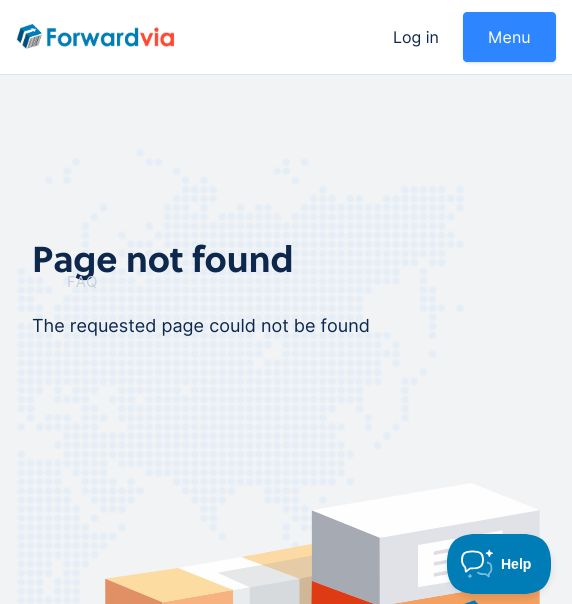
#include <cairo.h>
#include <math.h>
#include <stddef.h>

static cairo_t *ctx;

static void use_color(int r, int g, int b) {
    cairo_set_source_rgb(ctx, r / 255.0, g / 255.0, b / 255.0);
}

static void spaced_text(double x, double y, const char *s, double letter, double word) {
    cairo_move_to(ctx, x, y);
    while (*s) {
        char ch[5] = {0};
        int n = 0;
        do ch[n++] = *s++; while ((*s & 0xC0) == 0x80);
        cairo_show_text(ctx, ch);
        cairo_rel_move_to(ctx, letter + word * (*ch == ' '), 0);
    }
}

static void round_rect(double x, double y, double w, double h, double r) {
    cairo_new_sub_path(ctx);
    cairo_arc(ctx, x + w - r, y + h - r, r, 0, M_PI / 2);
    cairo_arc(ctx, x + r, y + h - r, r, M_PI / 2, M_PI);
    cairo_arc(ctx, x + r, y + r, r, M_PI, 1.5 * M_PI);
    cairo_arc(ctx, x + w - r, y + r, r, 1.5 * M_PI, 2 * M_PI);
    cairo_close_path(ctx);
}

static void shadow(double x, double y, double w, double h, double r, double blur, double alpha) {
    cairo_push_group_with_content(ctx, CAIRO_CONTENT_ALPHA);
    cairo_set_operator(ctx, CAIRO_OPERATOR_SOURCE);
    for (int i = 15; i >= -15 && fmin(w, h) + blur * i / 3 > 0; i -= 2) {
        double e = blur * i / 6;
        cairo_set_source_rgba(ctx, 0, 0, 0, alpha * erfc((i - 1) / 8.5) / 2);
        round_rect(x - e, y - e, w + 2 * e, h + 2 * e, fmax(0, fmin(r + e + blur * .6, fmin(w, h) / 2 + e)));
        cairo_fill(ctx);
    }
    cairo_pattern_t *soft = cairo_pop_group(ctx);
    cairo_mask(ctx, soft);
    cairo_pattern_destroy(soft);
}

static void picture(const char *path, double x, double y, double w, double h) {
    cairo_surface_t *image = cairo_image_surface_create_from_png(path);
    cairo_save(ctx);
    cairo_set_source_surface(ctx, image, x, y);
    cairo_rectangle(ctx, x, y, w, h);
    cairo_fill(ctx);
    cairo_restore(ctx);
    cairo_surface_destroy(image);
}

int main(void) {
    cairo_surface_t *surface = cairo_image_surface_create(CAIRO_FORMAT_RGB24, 572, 604);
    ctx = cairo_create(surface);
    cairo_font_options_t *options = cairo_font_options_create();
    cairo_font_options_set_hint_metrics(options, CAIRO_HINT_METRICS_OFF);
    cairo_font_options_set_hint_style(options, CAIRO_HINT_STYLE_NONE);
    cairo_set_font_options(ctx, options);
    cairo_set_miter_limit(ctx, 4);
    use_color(241, 243, 245);
    cairo_paint(ctx);
    use_color(255, 255, 255);
    cairo_rectangle(ctx, 0, 0, 572, 74);
    cairo_fill(ctx);
    use_color(222, 226, 233);
    cairo_rectangle(ctx, 0, 74, 572, 1);
    cairo_fill(ctx);
    picture("img1.png", 16, 24, 159, 25);
    cairo_select_font_face(ctx, "Inter", CAIRO_FONT_SLANT_NORMAL, CAIRO_FONT_WEIGHT_NORMAL);
    cairo_set_font_size(ctx, 16);
    use_color(14, 40, 77);
    cairo_move_to(ctx, 393, 43);
    cairo_show_text(ctx, "Log in");
    use_color(0, 0, 0);
    shadow(464, 14, 91, 48, 3, 1, 0.1);
    shadow(463, 13, 93, 50, 4, 1.5, 0.1);
    use_color(45, 133, 255);
    round_rect(463.5, 12.5, 92, 49, 3.5);
    cairo_fill_preserve(ctx);
    cairo_set_line_width(ctx, 1);
    cairo_stroke(ctx);
    use_color(255, 255, 255);
    cairo_move_to(ctx, 488, 43);
    cairo_show_text(ctx, "Menu");
    picture("img2.png", 17, 149, 447, 455);
    cairo_select_font_face(ctx, "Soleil", CAIRO_FONT_SLANT_NORMAL, CAIRO_FONT_WEIGHT_BOLD);
    cairo_set_font_size(ctx, 36);
    use_color(14, 40, 77);
    spaced_text(32, 272, "Page not found", -0.25, 0);
    cairo_select_font_face(ctx, "Inter", CAIRO_FONT_SLANT_NORMAL, CAIRO_FONT_WEIGHT_NORMAL);
    cairo_set_font_size(ctx, 15);
    use_color(200, 208, 218);
    cairo_move_to(ctx, 67, 287);
    cairo_show_text(ctx, "FAQ");
    cairo_set_font_size(ctx, 18);
    use_color(14, 40, 77);
    cairo_move_to(ctx, 32, 332);
    cairo_show_text(ctx, "The requested page could not be found");
    picture("img3.png", 105, 483, 435, 121);
    use_color(0, 0, 0);
    shadow(447, 538, 105, 60, 30, 3.5, 0.1);
    picture("img4.png", 447, 534, 104, 60);
    cairo_surface_write_to_png(surface, "result.png");
    cairo_font_options_destroy(options);
    cairo_destroy(ctx);
    cairo_surface_destroy(surface);
    return 0;
}
